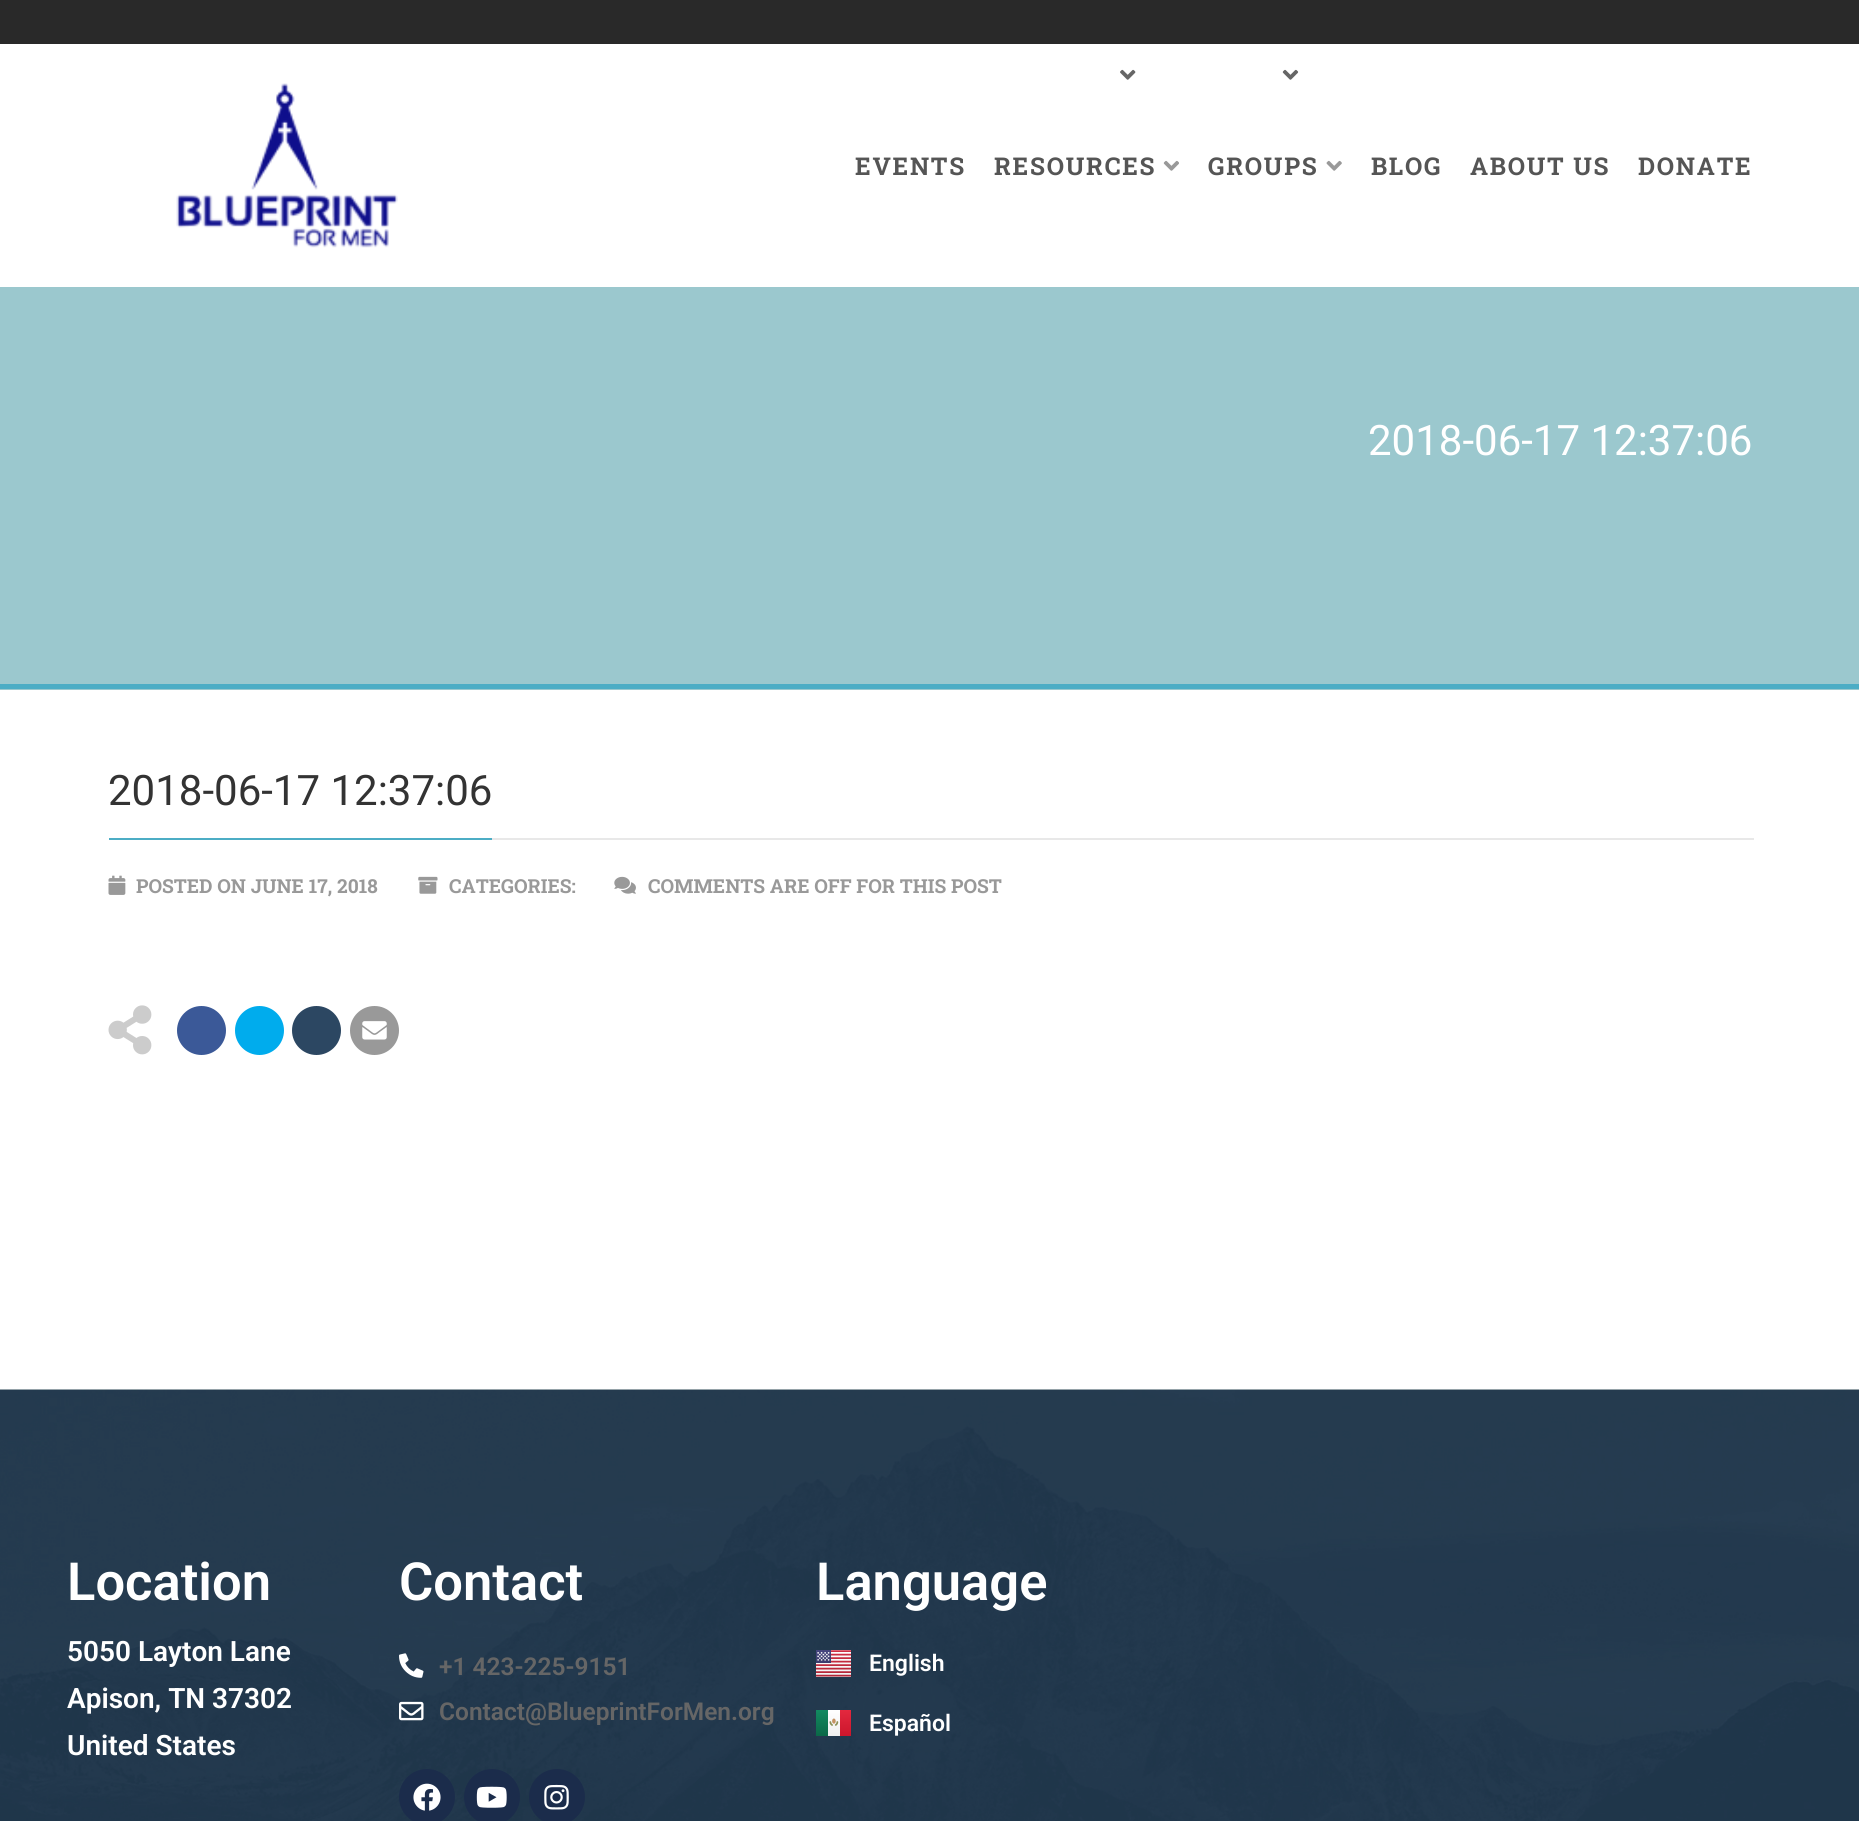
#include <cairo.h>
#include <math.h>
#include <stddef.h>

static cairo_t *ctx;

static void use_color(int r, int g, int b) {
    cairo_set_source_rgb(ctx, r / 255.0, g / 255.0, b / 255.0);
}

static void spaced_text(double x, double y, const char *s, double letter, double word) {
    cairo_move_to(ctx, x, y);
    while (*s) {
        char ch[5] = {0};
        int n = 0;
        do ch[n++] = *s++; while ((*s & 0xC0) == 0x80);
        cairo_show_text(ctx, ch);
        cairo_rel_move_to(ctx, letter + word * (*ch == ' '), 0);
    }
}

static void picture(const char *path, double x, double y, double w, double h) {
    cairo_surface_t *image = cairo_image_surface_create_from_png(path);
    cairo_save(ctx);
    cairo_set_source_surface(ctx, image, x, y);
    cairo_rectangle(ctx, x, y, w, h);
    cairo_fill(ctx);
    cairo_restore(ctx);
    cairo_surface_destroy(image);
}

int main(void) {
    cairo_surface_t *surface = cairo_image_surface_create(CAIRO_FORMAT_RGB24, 1859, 1821);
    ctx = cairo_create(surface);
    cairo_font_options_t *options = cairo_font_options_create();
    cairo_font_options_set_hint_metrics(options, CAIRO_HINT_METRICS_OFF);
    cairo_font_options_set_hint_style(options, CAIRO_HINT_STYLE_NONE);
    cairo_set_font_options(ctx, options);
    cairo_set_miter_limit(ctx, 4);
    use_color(255, 255, 255);
    cairo_paint(ctx);
    use_color(41, 41, 41);
    cairo_rectangle(ctx, 0, 0, 1859, 44);
    cairo_fill(ctx);
    picture("img1.png", 176, 83, 222, 165);
    cairo_select_font_face(ctx, "Roboto Slab", CAIRO_FONT_SLANT_NORMAL, CAIRO_FONT_WEIGHT_BOLD);
    cairo_set_font_size(ctx, 24.5);
    use_color(85, 85, 85);
    spaced_text(855, 175, "EVENTS", 1.75, 0);
    picture("img2.png", 1120, 69, 16, 11);
    spaced_text(994, 175, "RESOURCES", 1.75, 0);
    picture("img3.png", 1163, 160, 16, 11);
    picture("img4.png", 1282, 69, 17, 11);
    spaced_text(1208, 175, "GROUPS", 1.75, 0);
    picture("img5.png", 1326, 160, 16, 11);
    spaced_text(1371, 175, "BLOG", 1.75, 0);
    spaced_text(1470, 175, "ABOUT US", 1.75, 0);
    spaced_text(1638, 175, "DONATE", 1.75, 0);
    use_color(155, 200, 206);
    cairo_rectangle(ctx, 0, 287, 1859, 403);
    cairo_fill(ctx);
    use_color(76, 173, 197);
    cairo_rectangle(ctx, 0, 684, 1859, 5);
    cairo_fill(ctx);
    cairo_select_font_face(ctx, "Roboto", CAIRO_FONT_SLANT_NORMAL, CAIRO_FONT_WEIGHT_NORMAL);
    cairo_set_font_size(ctx, 42);
    use_color(255, 255, 255);
    cairo_move_to(ctx, 1368, 455);
    cairo_show_text(ctx, "2018-06-17 12:37:06");
    use_color(232, 232, 232);
    cairo_rectangle(ctx, 492, 838, 1262, 2);
    cairo_fill(ctx);
    use_color(76, 173, 197);
    cairo_rectangle(ctx, 109, 838, 383, 2);
    cairo_fill(ctx);
    use_color(51, 51, 51);
    cairo_move_to(ctx, 108, 805);
    cairo_show_text(ctx, "2018-06-17 12:37:06");
    picture("img6.png", 108, 875, 18, 20);
    cairo_select_font_face(ctx, "Roboto Slab", CAIRO_FONT_SLANT_NORMAL, CAIRO_FONT_WEIGHT_BOLD);
    cairo_set_font_size(ctx, 19.25);
    use_color(153, 153, 153);
    cairo_move_to(ctx, 136, 893);
    cairo_show_text(ctx, "POSTED ON JUNE 17, 2018");
    picture("img7.png", 418, 876, 20, 18);
    cairo_move_to(ctx, 449, 893);
    cairo_show_text(ctx, "CATEGORIES:");
    picture("img8.png", 614, 876, 22, 18);
    cairo_move_to(ctx, 648, 893);
    cairo_show_text(ctx, "COMMENTS ARE OFF FOR THIS POST");
    picture("img9.png", 108, 1005, 44, 50);
    use_color(59, 89, 152);
    cairo_arc(ctx, 201.5, 1030.5, 24.5, 0, 2 * M_PI);
    cairo_fill(ctx);
    use_color(0, 172, 237);
    cairo_arc(ctx, 259.5, 1030.5, 24.5, 0, 2 * M_PI);
    cairo_fill(ctx);
    use_color(44, 71, 98);
    cairo_arc(ctx, 316.5, 1030.5, 24.5, 0, 2 * M_PI);
    cairo_fill(ctx);
    use_color(153, 153, 153);
    cairo_arc(ctx, 374.5, 1030.5, 24.5, 0, 2 * M_PI);
    cairo_fill(ctx);
    picture("img10.png", 362, 1021, 25, 19);
    picture("img11.png", 0, 1389, 1859, 432);
    cairo_select_font_face(ctx, "Roboto SemiBold", CAIRO_FONT_SLANT_NORMAL, CAIRO_FONT_WEIGHT_NORMAL);
    cairo_set_font_size(ctx, 52.5);
    use_color(255, 255, 255);
    cairo_move_to(ctx, 67, 1600);
    cairo_show_text(ctx, "Location");
    cairo_set_font_size(ctx, 28);
    cairo_move_to(ctx, 67, 1661);
    cairo_show_text(ctx, "5050 Layton Lane");
    cairo_move_to(ctx, 67, 1708);
    cairo_show_text(ctx, "Apison, TN 37302");
    cairo_move_to(ctx, 67, 1755);
    cairo_show_text(ctx, "United States");
    cairo_set_font_size(ctx, 52.5);
    cairo_move_to(ctx, 399, 1600);
    cairo_show_text(ctx, "Contact");
    picture("img12.png", 399, 1653, 25, 25);
    cairo_set_font_size(ctx, 24.5);
    use_color(102, 102, 102);
    cairo_move_to(ctx, 439, 1675);
    cairo_show_text(ctx, "+1 423-225-9151");
    picture("img13.png", 399, 1701, 25, 20);
    cairo_move_to(ctx, 439, 1720);
    cairo_show_text(ctx, "Contact@BlueprintForMen.org");
    use_color(27, 44, 75);
    cairo_new_path(ctx);
    cairo_arc(ctx, 427, 1797, 28, 0, 2 * M_PI);
    cairo_fill(ctx);
    picture("img14.png", 413, 1783, 28, 28);
    cairo_arc(ctx, 492, 1797, 28, 0, 2 * M_PI);
    cairo_fill(ctx);
    picture("img15.png", 476, 1786, 31, 22);
    cairo_arc(ctx, 557, 1797, 28, 0, 2 * M_PI);
    cairo_fill(ctx);
    picture("img16.png", 544, 1784, 25, 26);
    cairo_set_font_size(ctx, 52.5);
    use_color(255, 255, 255);
    cairo_move_to(ctx, 816, 1600);
    cairo_show_text(ctx, "Language");
    picture("img17.png", 816, 1650, 35, 27);
    cairo_set_font_size(ctx, 23);
    cairo_move_to(ctx, 869, 1671);
    cairo_show_text(ctx, "English");
    picture("img18.png", 816, 1710, 35, 26);
    cairo_move_to(ctx, 869, 1731);
    cairo_show_text(ctx, "Español");
    cairo_surface_write_to_png(surface, "result.png");
    cairo_font_options_destroy(options);
    cairo_destroy(ctx);
    cairo_surface_destroy(surface);
    return 0;
}
